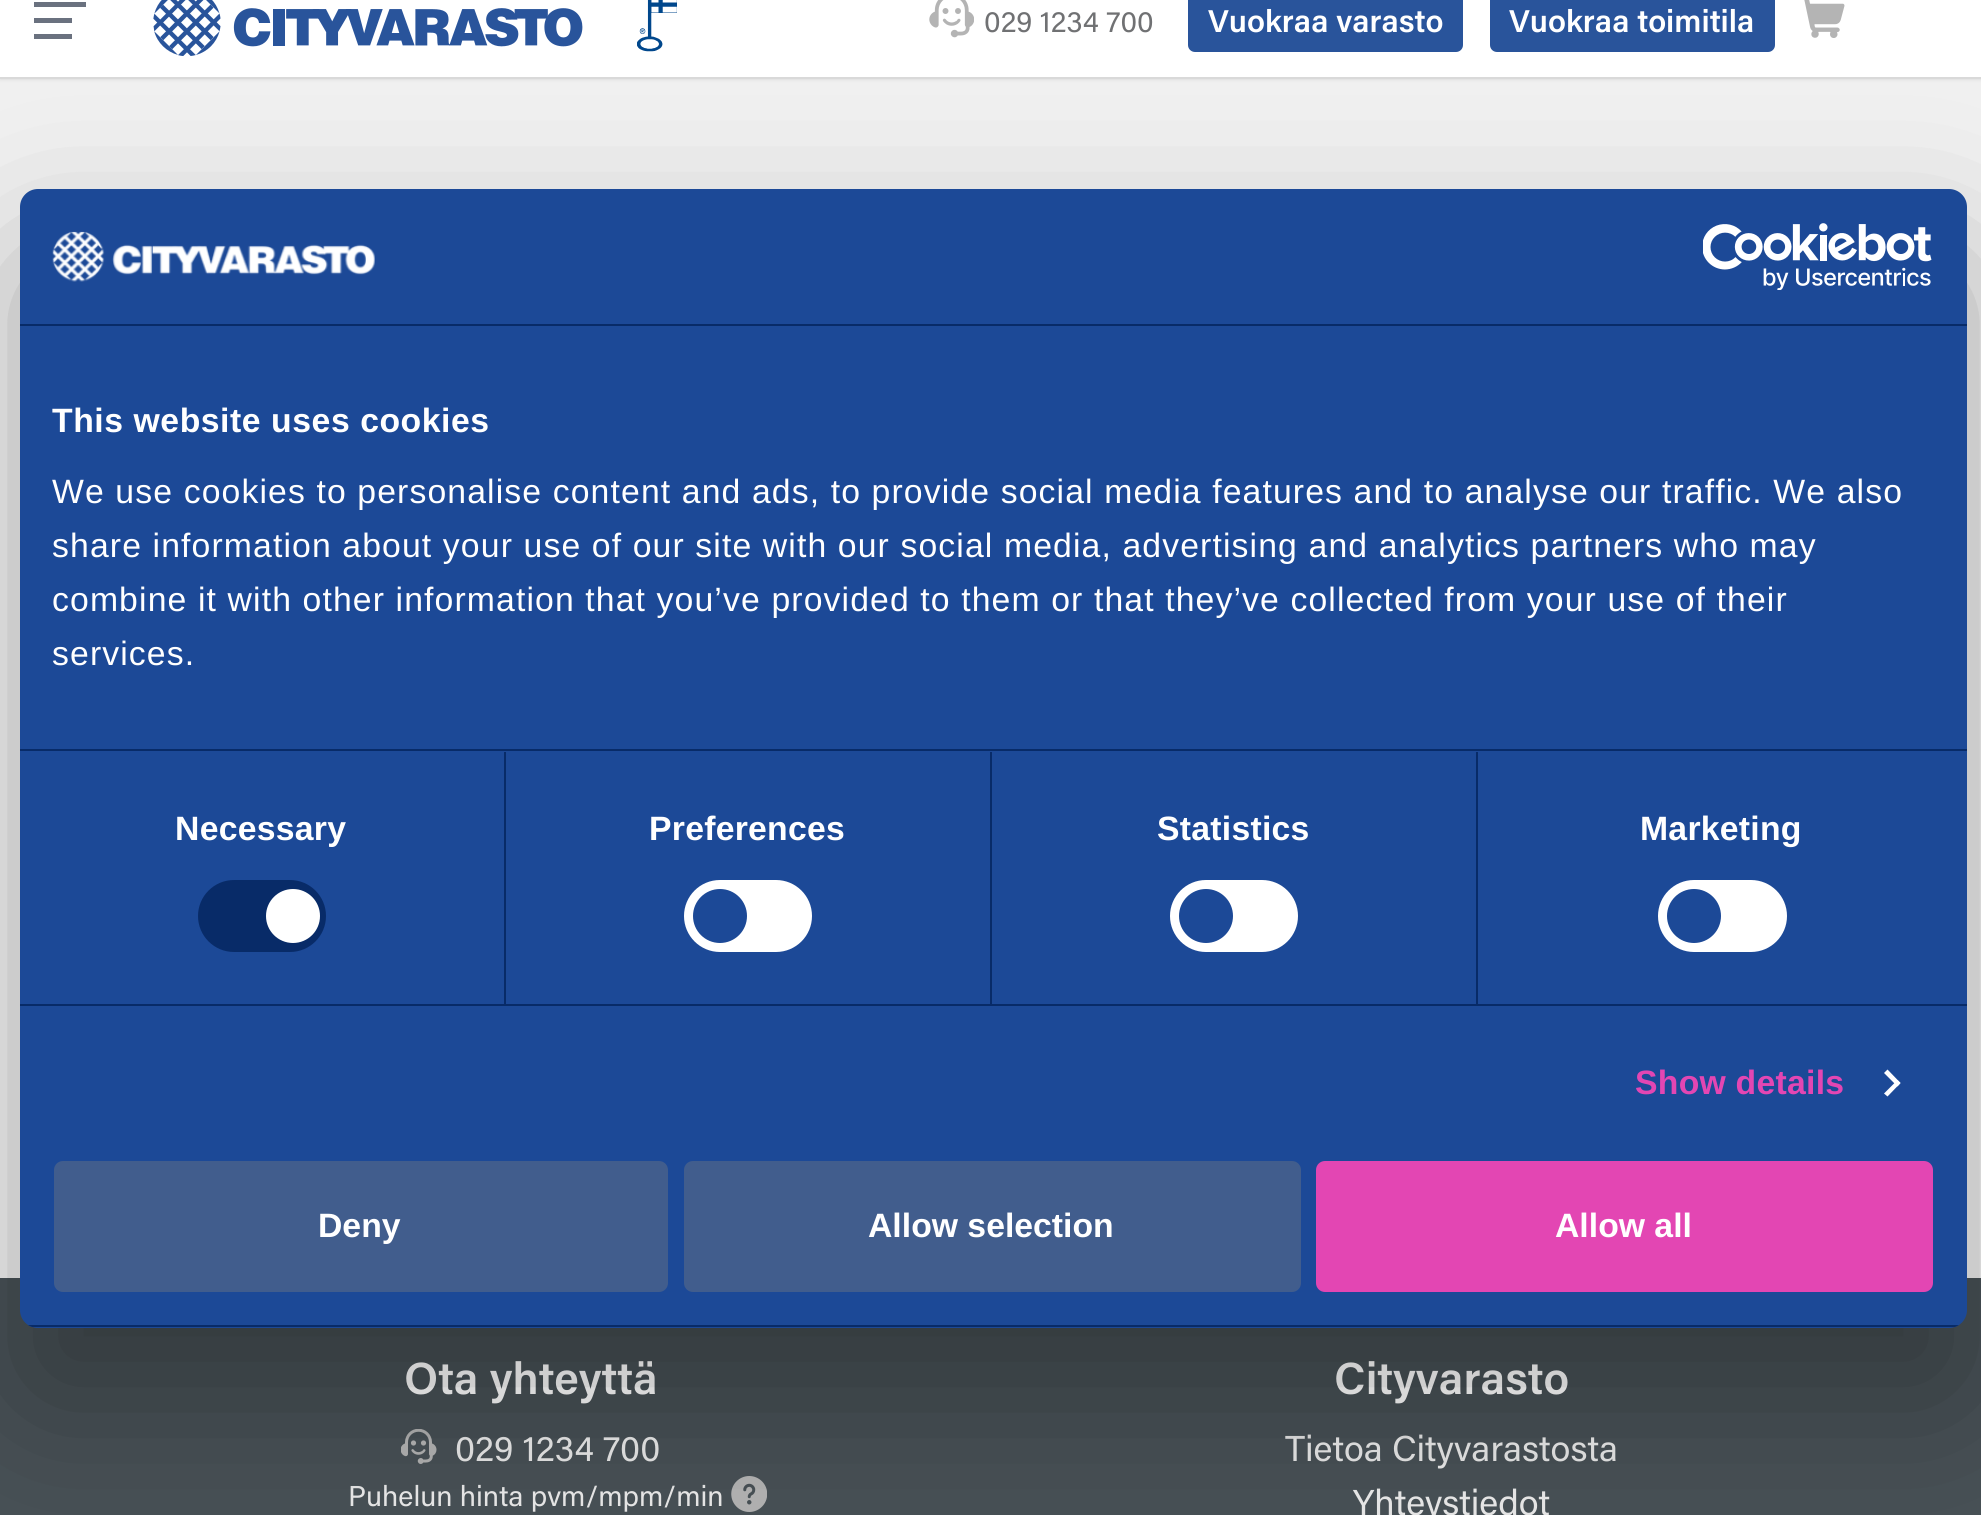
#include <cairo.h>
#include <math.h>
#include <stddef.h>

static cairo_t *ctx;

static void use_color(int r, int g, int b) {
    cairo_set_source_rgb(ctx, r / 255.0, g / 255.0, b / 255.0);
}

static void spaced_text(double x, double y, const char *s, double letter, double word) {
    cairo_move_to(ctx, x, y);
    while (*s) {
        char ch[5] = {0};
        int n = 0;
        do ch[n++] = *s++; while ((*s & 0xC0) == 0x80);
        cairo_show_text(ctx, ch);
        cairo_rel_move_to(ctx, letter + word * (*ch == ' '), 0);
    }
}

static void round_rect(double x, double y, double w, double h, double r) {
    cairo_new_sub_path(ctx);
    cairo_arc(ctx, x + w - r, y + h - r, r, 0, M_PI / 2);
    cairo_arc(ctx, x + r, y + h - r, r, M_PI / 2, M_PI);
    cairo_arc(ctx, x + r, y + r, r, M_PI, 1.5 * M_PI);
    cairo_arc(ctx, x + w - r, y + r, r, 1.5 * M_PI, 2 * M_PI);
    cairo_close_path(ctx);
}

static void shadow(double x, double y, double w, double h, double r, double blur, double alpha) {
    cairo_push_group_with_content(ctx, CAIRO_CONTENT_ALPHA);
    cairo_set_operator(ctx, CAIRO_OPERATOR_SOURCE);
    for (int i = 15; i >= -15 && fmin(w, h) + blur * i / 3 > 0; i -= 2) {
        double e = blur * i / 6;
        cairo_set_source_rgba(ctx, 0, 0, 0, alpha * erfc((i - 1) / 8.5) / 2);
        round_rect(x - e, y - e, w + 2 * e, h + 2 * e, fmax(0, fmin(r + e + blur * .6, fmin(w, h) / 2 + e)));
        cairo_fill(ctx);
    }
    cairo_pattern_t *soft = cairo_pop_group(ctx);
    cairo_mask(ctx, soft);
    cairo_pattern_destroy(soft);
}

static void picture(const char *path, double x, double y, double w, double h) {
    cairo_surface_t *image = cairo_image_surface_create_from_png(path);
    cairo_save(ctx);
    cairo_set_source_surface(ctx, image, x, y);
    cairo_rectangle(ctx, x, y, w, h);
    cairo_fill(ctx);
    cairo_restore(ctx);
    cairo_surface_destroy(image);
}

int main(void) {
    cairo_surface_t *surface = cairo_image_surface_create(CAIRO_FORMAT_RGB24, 1981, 1515);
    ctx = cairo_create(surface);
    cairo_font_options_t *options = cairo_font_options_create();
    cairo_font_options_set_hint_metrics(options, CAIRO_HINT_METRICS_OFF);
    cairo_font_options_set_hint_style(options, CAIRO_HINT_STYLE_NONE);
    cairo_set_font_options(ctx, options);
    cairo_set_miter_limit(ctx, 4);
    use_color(234, 234, 234);
    cairo_paint(ctx);
    use_color(153, 153, 153);
    shadow(0, -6, 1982, 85, 0, 2, 0.5);
    use_color(255, 255, 255);
    cairo_rectangle(ctx, 0, 0, 1981, 77);
    cairo_fill(ctx);
    use_color(106, 113, 127);
    cairo_rectangle(ctx, 34, 18, 38, 5);
    cairo_fill(ctx);
    cairo_rectangle(ctx, 34, 2, 52, 5);
    cairo_fill(ctx);
    cairo_rectangle(ctx, 34, 34, 38, 5);
    cairo_fill(ctx);
    picture("img1.png", 153, 0, 430, 56);
    picture("img2.png", 637, 0, 40, 52);
    use_color(217, 217, 217);
    cairo_rectangle(ctx, 0, 77, 1981, 2);
    cairo_fill(ctx);
    picture("img3.png", 929, 0, 45, 38);
    cairo_select_font_face(ctx, "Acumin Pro", CAIRO_FONT_SLANT_NORMAL, CAIRO_FONT_WEIGHT_NORMAL);
    cairo_set_font_size(ctx, 29.75);
    use_color(112, 113, 115);
    cairo_move_to(ctx, 984, 32);
    cairo_show_text(ctx, "029 1234 700");
    use_color(41, 84, 155);
    round_rect(1189, -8, 273, 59, 6);
    cairo_fill_preserve(ctx);
    cairo_stroke(ctx);
    cairo_select_font_face(ctx, "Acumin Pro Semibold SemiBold", CAIRO_FONT_SLANT_NORMAL, CAIRO_FONT_WEIGHT_NORMAL);
    cairo_set_font_size(ctx, 31.5);
    use_color(255, 255, 255);
    cairo_move_to(ctx, 1208, 32);
    cairo_show_text(ctx, "Vuokraa varasto");
    use_color(41, 84, 155);
    round_rect(1491, -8, 283, 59, 6);
    cairo_fill_preserve(ctx);
    cairo_stroke(ctx);
    use_color(255, 255, 255);
    cairo_move_to(ctx, 1509, 32);
    cairo_show_text(ctx, "Vuokraa toimitila");
    picture("img4.png", 1804, 0, 41, 38);
    cairo_set_source_rgba(ctx, 1, 1, 1, 0.3);
    cairo_rectangle(ctx, 0, 79, 1981, 1199);
    cairo_fill(ctx);
    use_color(72, 81, 86);
    cairo_rectangle(ctx, 0, 1278, 1981, 237);
    cairo_fill(ctx);
    cairo_set_font_size(ctx, 45);
    use_color(255, 255, 255);
    cairo_move_to(ctx, 404, 1394);
    cairo_show_text(ctx, "Ota yhteyttä");
    picture("img5.png", 401, 1429, 36, 35);
    cairo_select_font_face(ctx, "Acumin Pro", CAIRO_FONT_SLANT_NORMAL, CAIRO_FONT_WEIGHT_NORMAL);
    cairo_set_font_size(ctx, 36);
    use_color(234, 234, 234);
    cairo_move_to(ctx, 455, 1461);
    cairo_show_text(ctx, "029 1234 700");
    cairo_set_font_size(ctx, 28.75);
    cairo_move_to(ctx, 348, 1506);
    cairo_show_text(ctx, "Puhelun hinta pvm/mpm/min");
    picture("img6.png", 731, 1476, 36, 36);
    cairo_select_font_face(ctx, "Acumin Pro Semibold SemiBold", CAIRO_FONT_SLANT_NORMAL, CAIRO_FONT_WEIGHT_NORMAL);
    cairo_set_font_size(ctx, 45);
    use_color(255, 255, 255);
    cairo_move_to(ctx, 1334, 1394);
    cairo_show_text(ctx, "Cityvarasto");
    cairo_select_font_face(ctx, "Acumin Pro", CAIRO_FONT_SLANT_NORMAL, CAIRO_FONT_WEIGHT_NORMAL);
    cairo_set_font_size(ctx, 36);
    use_color(234, 234, 234);
    cairo_move_to(ctx, 1285, 1461);
    cairo_show_text(ctx, "Tietoa Cityvarastosta");
    cairo_move_to(ctx, 1353, 1515);
    cairo_show_text(ctx, "Yhteystiedot");
    use_color(0, 0, 0);
    shadow(20, 261, 1947, 1139, 18, 76.5, 0.3);
    use_color(28, 73, 151);
    round_rect(20, 189, 1947, 1139, 18);
    cairo_fill(ctx);
    use_color(8, 43, 104);
    cairo_rectangle(ctx, 20, 324, 1947, 2);
    cairo_fill(ctx);
    picture("img7.png", 52, 231, 323, 51);
    picture("img8.png", 1703, 223, 229, 67);
    cairo_rectangle(ctx, 20, 749, 1947, 2);
    cairo_fill(ctx);
    cairo_select_font_face(ctx, "Liberation Sans", CAIRO_FONT_SLANT_NORMAL, CAIRO_FONT_WEIGHT_BOLD);
    cairo_set_font_size(ctx, 33.75);
    use_color(255, 255, 255);
    spaced_text(52, 432, "This website uses cookies", 0.55, 0);
    cairo_select_font_face(ctx, "Liberation Sans", CAIRO_FONT_SLANT_NORMAL, CAIRO_FONT_WEIGHT_NORMAL);
    spaced_text(52, 503, "We use cookies to personalise content and ads, to provide social media features and to analyse our traffic. We also", 1.12, 0);
    spaced_text(52, 557, "share information about your use of our site with our social media, advertising and analytics partners who may", 1.12, 0);
    spaced_text(52, 611, "combine it with other information that you’ve provided to them or that they’ve collected from your use of their", 1.12, 0);
    spaced_text(52, 665, "services.", 1.12, 0);
    use_color(8, 43, 104);
    cairo_rectangle(ctx, 20, 1004, 1947, 2);
    cairo_fill(ctx);
    cairo_rectangle(ctx, 504, 752, 2, 252);
    cairo_fill(ctx);
    cairo_select_font_face(ctx, "Liberation Sans", CAIRO_FONT_SLANT_NORMAL, CAIRO_FONT_WEIGHT_BOLD);
    use_color(255, 255, 255);
    spaced_text(175, 840, "Necessary", 0.25, 0);
    use_color(8, 43, 104);
    round_rect(198, 880, 128, 72, 36);
    cairo_fill(ctx);
    use_color(255, 255, 255);
    cairo_arc(ctx, 293, 916, 27, 0, 2 * M_PI);
    cairo_fill(ctx);
    use_color(8, 43, 104);
    cairo_rectangle(ctx, 990, 752, 2, 252);
    cairo_fill(ctx);
    use_color(255, 255, 255);
    spaced_text(649, 840, "Preferences", 0.25, 0);
    round_rect(684, 880, 128, 72, 36);
    cairo_fill(ctx);
    use_color(28, 73, 151);
    cairo_arc(ctx, 720, 916, 27, 0, 2 * M_PI);
    cairo_fill(ctx);
    use_color(8, 43, 104);
    cairo_rectangle(ctx, 1476, 752, 2, 252);
    cairo_fill(ctx);
    use_color(255, 255, 255);
    spaced_text(1157, 840, "Statistics", 0.25, 0);
    round_rect(1170, 880, 128, 72, 36);
    cairo_fill(ctx);
    use_color(28, 73, 151);
    cairo_arc(ctx, 1206, 916, 27, 0, 2 * M_PI);
    cairo_fill(ctx);
    use_color(255, 255, 255);
    spaced_text(1640, 840, "Marketing", 0.25, 0);
    round_rect(1658, 880, 129, 72, 36);
    cairo_fill(ctx);
    use_color(28, 73, 151);
    cairo_arc(ctx, 1694, 916, 27, 0, 2 * M_PI);
    cairo_fill(ctx);
    use_color(227, 70, 179);
    spaced_text(1635, 1094, "Show details", 0.25, 0);
    use_color(255, 255, 255);
    cairo_new_path(ctx);
    cairo_move_to(ctx, 1887.5, 1069.5);
    cairo_line_to(ctx, 1900.5, 1083);
    cairo_line_to(ctx, 1897.5, 1086.5);
    cairo_line_to(ctx, 1884, 1073);
    cairo_close_path(ctx);
    cairo_fill(ctx);
    cairo_new_path(ctx);
    cairo_move_to(ctx, 1897.5, 1080);
    cairo_line_to(ctx, 1900.5, 1083);
    cairo_line_to(ctx, 1887.5, 1096.5);
    cairo_line_to(ctx, 1884, 1093.5);
    cairo_close_path(ctx);
    cairo_fill(ctx);
    cairo_save(ctx);
    round_rect(20, 189, 1947, 1139, 18);
    cairo_clip(ctx);
    use_color(8, 43, 104);
    cairo_rectangle(ctx, 20, 1325, 1947, 2);
    cairo_fill(ctx);
    cairo_restore(ctx);
    use_color(65, 93, 141);
    round_rect(56.5, 1163.5, 609, 126, 6.5);
    cairo_fill_preserve(ctx);
    cairo_set_line_width(ctx, 5);
    cairo_stroke(ctx);
    use_color(255, 255, 255);
    cairo_move_to(ctx, 318, 1237);
    cairo_show_text(ctx, "Deny");
    use_color(65, 93, 141);
    round_rect(686.5, 1163.5, 612, 126, 6.5);
    cairo_fill_preserve(ctx);
    cairo_stroke(ctx);
    use_color(255, 255, 255);
    cairo_move_to(ctx, 868, 1237);
    cairo_show_text(ctx, "Allow selection");
    use_color(227, 70, 179);
    round_rect(1318.5, 1163.5, 612, 126, 6.5);
    cairo_fill_preserve(ctx);
    cairo_stroke(ctx);
    use_color(255, 255, 255);
    cairo_move_to(ctx, 1555, 1237);
    cairo_show_text(ctx, "Allow all");
    cairo_surface_write_to_png(surface, "result.png");
    cairo_font_options_destroy(options);
    cairo_destroy(ctx);
    cairo_surface_destroy(surface);
    return 0;
}
